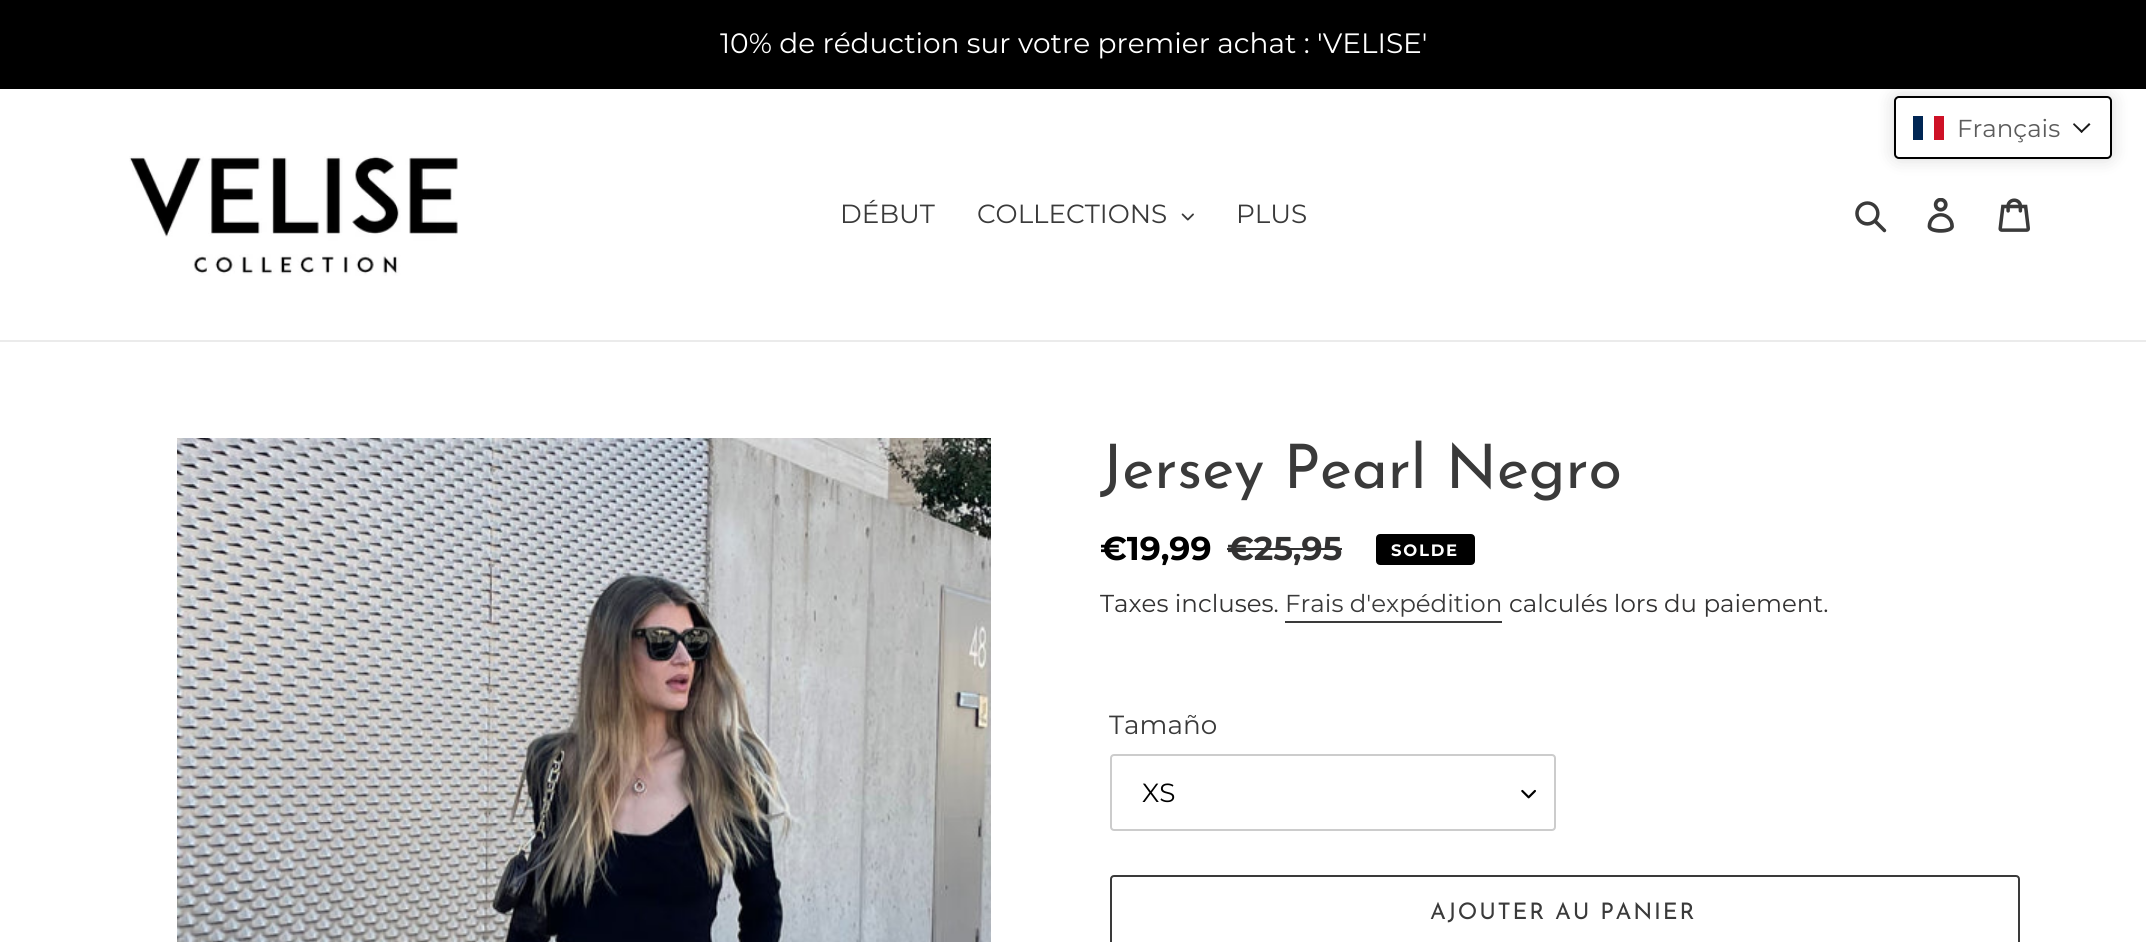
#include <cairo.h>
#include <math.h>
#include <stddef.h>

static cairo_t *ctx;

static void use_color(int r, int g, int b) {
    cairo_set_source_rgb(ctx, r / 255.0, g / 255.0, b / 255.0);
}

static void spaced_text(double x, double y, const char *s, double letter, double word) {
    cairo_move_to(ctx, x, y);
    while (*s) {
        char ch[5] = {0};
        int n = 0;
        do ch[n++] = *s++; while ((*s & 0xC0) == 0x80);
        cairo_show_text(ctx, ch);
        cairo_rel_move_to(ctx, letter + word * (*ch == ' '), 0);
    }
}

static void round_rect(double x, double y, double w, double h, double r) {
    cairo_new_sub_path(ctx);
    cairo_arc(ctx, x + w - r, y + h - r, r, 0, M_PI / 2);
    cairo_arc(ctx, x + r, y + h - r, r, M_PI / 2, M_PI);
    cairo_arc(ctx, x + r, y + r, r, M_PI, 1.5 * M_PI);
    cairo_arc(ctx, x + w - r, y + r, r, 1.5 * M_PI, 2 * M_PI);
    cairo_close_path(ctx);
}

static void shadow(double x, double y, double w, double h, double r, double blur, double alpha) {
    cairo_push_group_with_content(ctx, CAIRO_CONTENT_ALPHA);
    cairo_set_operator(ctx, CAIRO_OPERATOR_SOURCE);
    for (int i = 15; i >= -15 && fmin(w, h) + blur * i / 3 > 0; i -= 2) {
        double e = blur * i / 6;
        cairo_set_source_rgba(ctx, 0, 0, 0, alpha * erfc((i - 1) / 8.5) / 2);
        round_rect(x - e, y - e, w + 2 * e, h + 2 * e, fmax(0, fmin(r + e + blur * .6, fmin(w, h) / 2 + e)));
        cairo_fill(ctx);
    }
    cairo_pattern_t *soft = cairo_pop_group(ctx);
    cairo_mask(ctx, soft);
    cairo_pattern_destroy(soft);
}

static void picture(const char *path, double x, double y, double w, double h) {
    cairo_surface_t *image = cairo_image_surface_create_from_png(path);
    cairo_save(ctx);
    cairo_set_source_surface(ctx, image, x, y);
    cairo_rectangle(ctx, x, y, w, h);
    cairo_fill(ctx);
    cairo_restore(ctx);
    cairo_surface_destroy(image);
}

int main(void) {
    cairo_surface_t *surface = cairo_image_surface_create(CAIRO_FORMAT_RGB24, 2146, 942);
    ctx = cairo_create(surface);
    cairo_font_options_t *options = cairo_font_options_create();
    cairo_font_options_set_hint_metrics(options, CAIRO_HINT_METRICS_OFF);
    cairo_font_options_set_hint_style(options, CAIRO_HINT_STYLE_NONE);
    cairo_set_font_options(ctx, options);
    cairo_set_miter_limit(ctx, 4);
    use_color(255, 255, 255);
    cairo_paint(ctx);
    use_color(0, 0, 0);
    cairo_rectangle(ctx, 0, 0, 2146, 89);
    cairo_fill(ctx);
    cairo_select_font_face(ctx, "Montserrat", CAIRO_FONT_SLANT_NORMAL, CAIRO_FONT_WEIGHT_NORMAL);
    cairo_set_font_size(ctx, 28);
    use_color(255, 255, 255);
    cairo_move_to(ctx, 720, 53);
    cairo_show_text(ctx, "10% de réduction sur votre premier achat : 'VELISE'");
    use_color(235, 235, 235);
    cairo_rectangle(ctx, 0, 340, 2146, 2);
    cairo_fill(ctx);
    picture("img1.png", 129, 156, 329, 120);
    cairo_set_font_size(ctx, 26.25);
    use_color(58, 58, 58);
    cairo_move_to(ctx, 840, 223);
    cairo_show_text(ctx, "DÉBUT");
    cairo_move_to(ctx, 977, 223);
    cairo_show_text(ctx, "COLLECTIONS");
    picture("img2.png", 1181, 213, 13, 8);
    cairo_move_to(ctx, 1236, 223);
    cairo_show_text(ctx, "PLUS");
    picture("img3.png", 1855, 201, 32, 32);
    picture("img4.png", 1927, 198, 27, 35);
    picture("img5.png", 1998, 198, 32, 34);
    use_color(0, 0, 0);
    shadow(1894, 96, 218, 63, 5, 9, 0.15);
    use_color(255, 255, 255);
    round_rect(1895, 97, 216, 61, 4);
    cairo_fill_preserve(ctx);
    use_color(0, 0, 0);
    cairo_stroke(ctx);
    use_color(0, 38, 84);
    cairo_rectangle(ctx, 1913, 116, 10, 24);
    cairo_fill(ctx);
    use_color(206, 17, 38);
    cairo_rectangle(ctx, 1934, 116, 10, 24);
    cairo_fill(ctx);
    cairo_set_font_size(ctx, 24.5);
    use_color(92, 92, 92);
    cairo_move_to(ctx, 1957, 137);
    cairo_show_text(ctx, "Français");
    use_color(26, 26, 26);
    cairo_new_path(ctx);
    cairo_move_to(ctx, 2089, 123);
    cairo_line_to(ctx, 2090.5, 124.5);
    cairo_line_to(ctx, 2081.5, 133);
    cairo_line_to(ctx, 2080.5, 131.5);
    cairo_close_path(ctx);
    cairo_fill(ctx);
    cairo_new_path(ctx);
    cairo_move_to(ctx, 2074, 123);
    cairo_line_to(ctx, 2083, 131.5);
    cairo_line_to(ctx, 2081.5, 133);
    cairo_line_to(ctx, 2073, 124.5);
    cairo_close_path(ctx);
    cairo_fill(ctx);
    picture("img6.png", 177, 438, 814, 504);
    cairo_select_font_face(ctx, "Josefin Sans", CAIRO_FONT_SLANT_NORMAL, CAIRO_FONT_WEIGHT_NORMAL);
    cairo_set_font_size(ctx, 61.25);
    use_color(58, 58, 58);
    cairo_move_to(ctx, 1100, 488);
    cairo_show_text(ctx, "Jersey Pearl Negro");
    cairo_select_font_face(ctx, "Montserrat", CAIRO_FONT_SLANT_NORMAL, CAIRO_FONT_WEIGHT_BOLD);
    cairo_set_font_size(ctx, 33);
    use_color(0, 0, 0);
    cairo_move_to(ctx, 1100, 560);
    cairo_show_text(ctx, "€19,99");
    use_color(51, 50, 50);
    cairo_move_to(ctx, 1227, 560);
    cairo_show_text(ctx, "€25,95");
    cairo_rectangle(ctx, 1227, 548, 115, 2);
    cairo_fill(ctx);
    use_color(0, 0, 0);
    round_rect(1377, 535, 97, 29, 3);
    cairo_fill_preserve(ctx);
    cairo_stroke(ctx);
    cairo_set_font_size(ctx, 16.5);
    use_color(255, 255, 255);
    spaced_text(1391, 556, "SOLDE", 1.75, 0);
    cairo_select_font_face(ctx, "Montserrat", CAIRO_FONT_SLANT_NORMAL, CAIRO_FONT_WEIGHT_NORMAL);
    cairo_set_font_size(ctx, 24.5);
    use_color(51, 50, 50);
    cairo_move_to(ctx, 1100, 612);
    cairo_show_text(ctx, "Taxes incluses.");
    use_color(58, 58, 58);
    cairo_move_to(ctx, 1285, 612);
    cairo_show_text(ctx, "Frais d'expédition");
    cairo_rectangle(ctx, 1285, 621, 217, 2);
    cairo_fill(ctx);
    use_color(51, 50, 50);
    cairo_move_to(ctx, 1509, 612);
    cairo_show_text(ctx, "calculés lors du paiement.");
    cairo_set_font_size(ctx, 26.25);
    use_color(58, 58, 58);
    cairo_move_to(ctx, 1109, 734);
    cairo_show_text(ctx, "Tamaño");
    picture("img7.png", 1521, 789, 15, 10);
    round_rect(1111, 755, 444, 75, 3);
    use_color(204, 204, 204);
    cairo_stroke(ctx);
    use_color(0, 0, 0);
    cairo_move_to(ctx, 1142, 802);
    cairo_show_text(ctx, "XS");
    round_rect(1111, 876, 908, 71, 3);
    use_color(58, 58, 58);
    cairo_stroke(ctx);
    cairo_select_font_face(ctx, "Josefin Sans", CAIRO_FONT_SLANT_NORMAL, CAIRO_FONT_WEIGHT_NORMAL);
    cairo_set_font_size(ctx, 22.75);
    spaced_text(1430, 919, "AJOUTER AU PANIER", 1.8, 0);
    cairo_surface_write_to_png(surface, "result.png");
    cairo_font_options_destroy(options);
    cairo_destroy(ctx);
    cairo_surface_destroy(surface);
    return 0;
}
